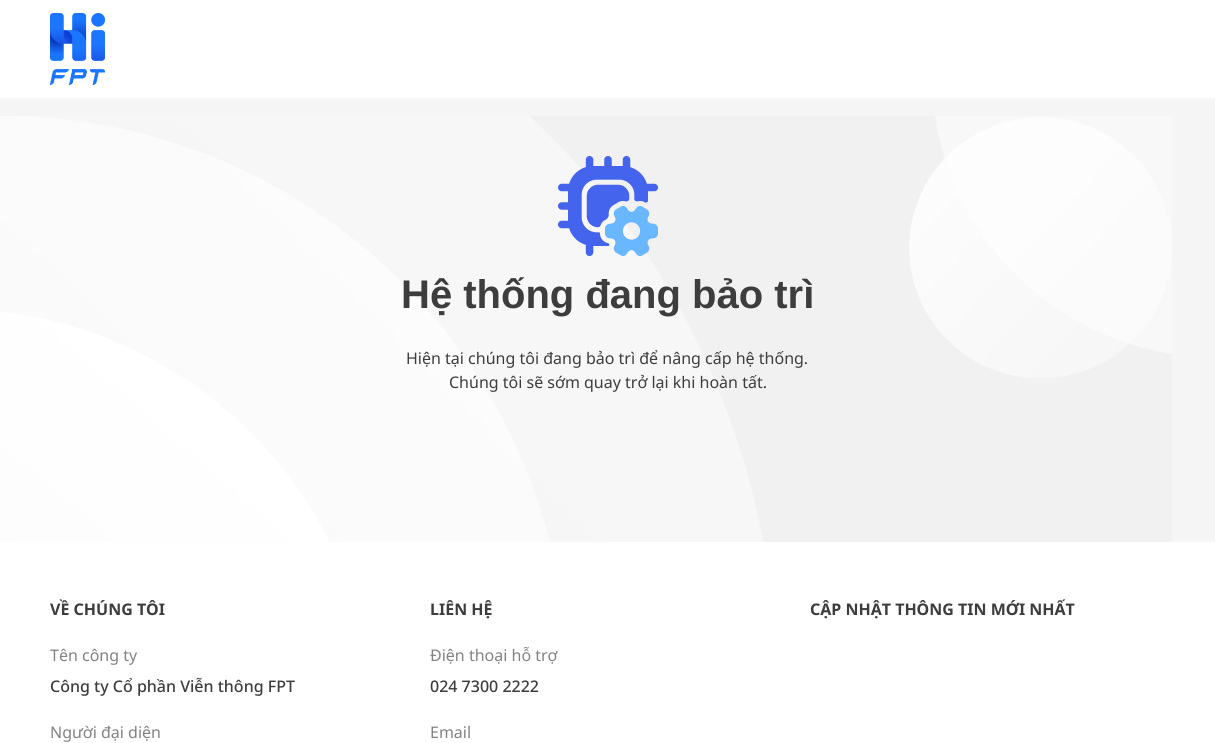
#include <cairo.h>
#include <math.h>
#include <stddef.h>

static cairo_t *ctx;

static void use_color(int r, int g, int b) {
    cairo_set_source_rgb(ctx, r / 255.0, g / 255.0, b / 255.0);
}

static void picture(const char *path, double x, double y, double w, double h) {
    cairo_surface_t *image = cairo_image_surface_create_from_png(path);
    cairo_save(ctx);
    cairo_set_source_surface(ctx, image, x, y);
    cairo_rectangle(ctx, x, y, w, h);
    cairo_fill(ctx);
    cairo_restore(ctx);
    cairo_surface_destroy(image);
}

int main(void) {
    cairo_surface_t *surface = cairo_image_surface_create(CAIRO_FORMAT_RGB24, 1215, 743);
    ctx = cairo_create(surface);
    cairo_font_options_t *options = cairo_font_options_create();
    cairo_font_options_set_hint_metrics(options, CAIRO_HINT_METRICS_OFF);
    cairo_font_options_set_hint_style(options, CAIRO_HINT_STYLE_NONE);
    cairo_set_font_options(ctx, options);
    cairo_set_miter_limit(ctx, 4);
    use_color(255, 255, 255);
    cairo_paint(ctx);
    picture("img1.png", 50, 13, 55, 72);
    use_color(245, 245, 245);
    cairo_rectangle(ctx, 0, 98, 1215, 444);
    cairo_fill(ctx);
    picture("img2.png", 0, 116, 1172, 426);
    picture("img3.png", 558, 156, 100, 100);
    cairo_select_font_face(ctx, "Liberation Sans", CAIRO_FONT_SLANT_NORMAL, CAIRO_FONT_WEIGHT_BOLD);
    cairo_set_font_size(ctx, 40);
    use_color(61, 61, 61);
    cairo_move_to(ctx, 401, 308);
    cairo_show_text(ctx, "Hệ thống đang bảo trì");
    cairo_select_font_face(ctx, "Noto Sans", CAIRO_FONT_SLANT_NORMAL, CAIRO_FONT_WEIGHT_NORMAL);
    cairo_set_font_size(ctx, 16);
    cairo_move_to(ctx, 406, 364);
    cairo_show_text(ctx, "Hiện tại chúng tôi đang bảo trì để nâng cấp hệ thống.");
    cairo_move_to(ctx, 449, 388);
    cairo_show_text(ctx, "Chúng tôi sẽ sớm quay trở lại khi hoàn tất.");
    cairo_select_font_face(ctx, "Noto Sans", CAIRO_FONT_SLANT_NORMAL, CAIRO_FONT_WEIGHT_BOLD);
    cairo_move_to(ctx, 50, 615);
    cairo_show_text(ctx, "VỀ CHÚNG TÔI");
    cairo_select_font_face(ctx, "Noto Sans", CAIRO_FONT_SLANT_NORMAL, CAIRO_FONT_WEIGHT_NORMAL);
    use_color(130, 130, 130);
    cairo_move_to(ctx, 50, 661);
    cairo_show_text(ctx, "Tên công ty");
    cairo_select_font_face(ctx, "Noto Sans Medium", CAIRO_FONT_SLANT_NORMAL, CAIRO_FONT_WEIGHT_NORMAL);
    use_color(61, 61, 61);
    cairo_move_to(ctx, 50, 692);
    cairo_show_text(ctx, "Công ty Cổ phần Viễn thông FPT");
    cairo_select_font_face(ctx, "Noto Sans", CAIRO_FONT_SLANT_NORMAL, CAIRO_FONT_WEIGHT_NORMAL);
    use_color(130, 130, 130);
    cairo_move_to(ctx, 50, 738);
    cairo_show_text(ctx, "Người đại diện");
    cairo_select_font_face(ctx, "Noto Sans", CAIRO_FONT_SLANT_NORMAL, CAIRO_FONT_WEIGHT_BOLD);
    use_color(61, 61, 61);
    cairo_move_to(ctx, 430, 615);
    cairo_show_text(ctx, "LIÊN HỆ");
    cairo_select_font_face(ctx, "Noto Sans", CAIRO_FONT_SLANT_NORMAL, CAIRO_FONT_WEIGHT_NORMAL);
    use_color(130, 130, 130);
    cairo_move_to(ctx, 430, 661);
    cairo_show_text(ctx, "Điện thoại hỗ trợ");
    cairo_select_font_face(ctx, "Noto Sans Medium", CAIRO_FONT_SLANT_NORMAL, CAIRO_FONT_WEIGHT_NORMAL);
    use_color(61, 61, 61);
    cairo_move_to(ctx, 430, 692);
    cairo_show_text(ctx, "024 7300 2222");
    cairo_select_font_face(ctx, "Noto Sans", CAIRO_FONT_SLANT_NORMAL, CAIRO_FONT_WEIGHT_NORMAL);
    use_color(130, 130, 130);
    cairo_move_to(ctx, 430, 738);
    cairo_show_text(ctx, "Email");
    cairo_select_font_face(ctx, "Noto Sans", CAIRO_FONT_SLANT_NORMAL, CAIRO_FONT_WEIGHT_BOLD);
    use_color(61, 61, 61);
    cairo_move_to(ctx, 810, 615);
    cairo_show_text(ctx, "CẬP NHẬT THÔNG TIN MỚI NHẤT");
    cairo_surface_write_to_png(surface, "result.png");
    cairo_font_options_destroy(options);
    cairo_destroy(ctx);
    cairo_surface_destroy(surface);
    return 0;
}
